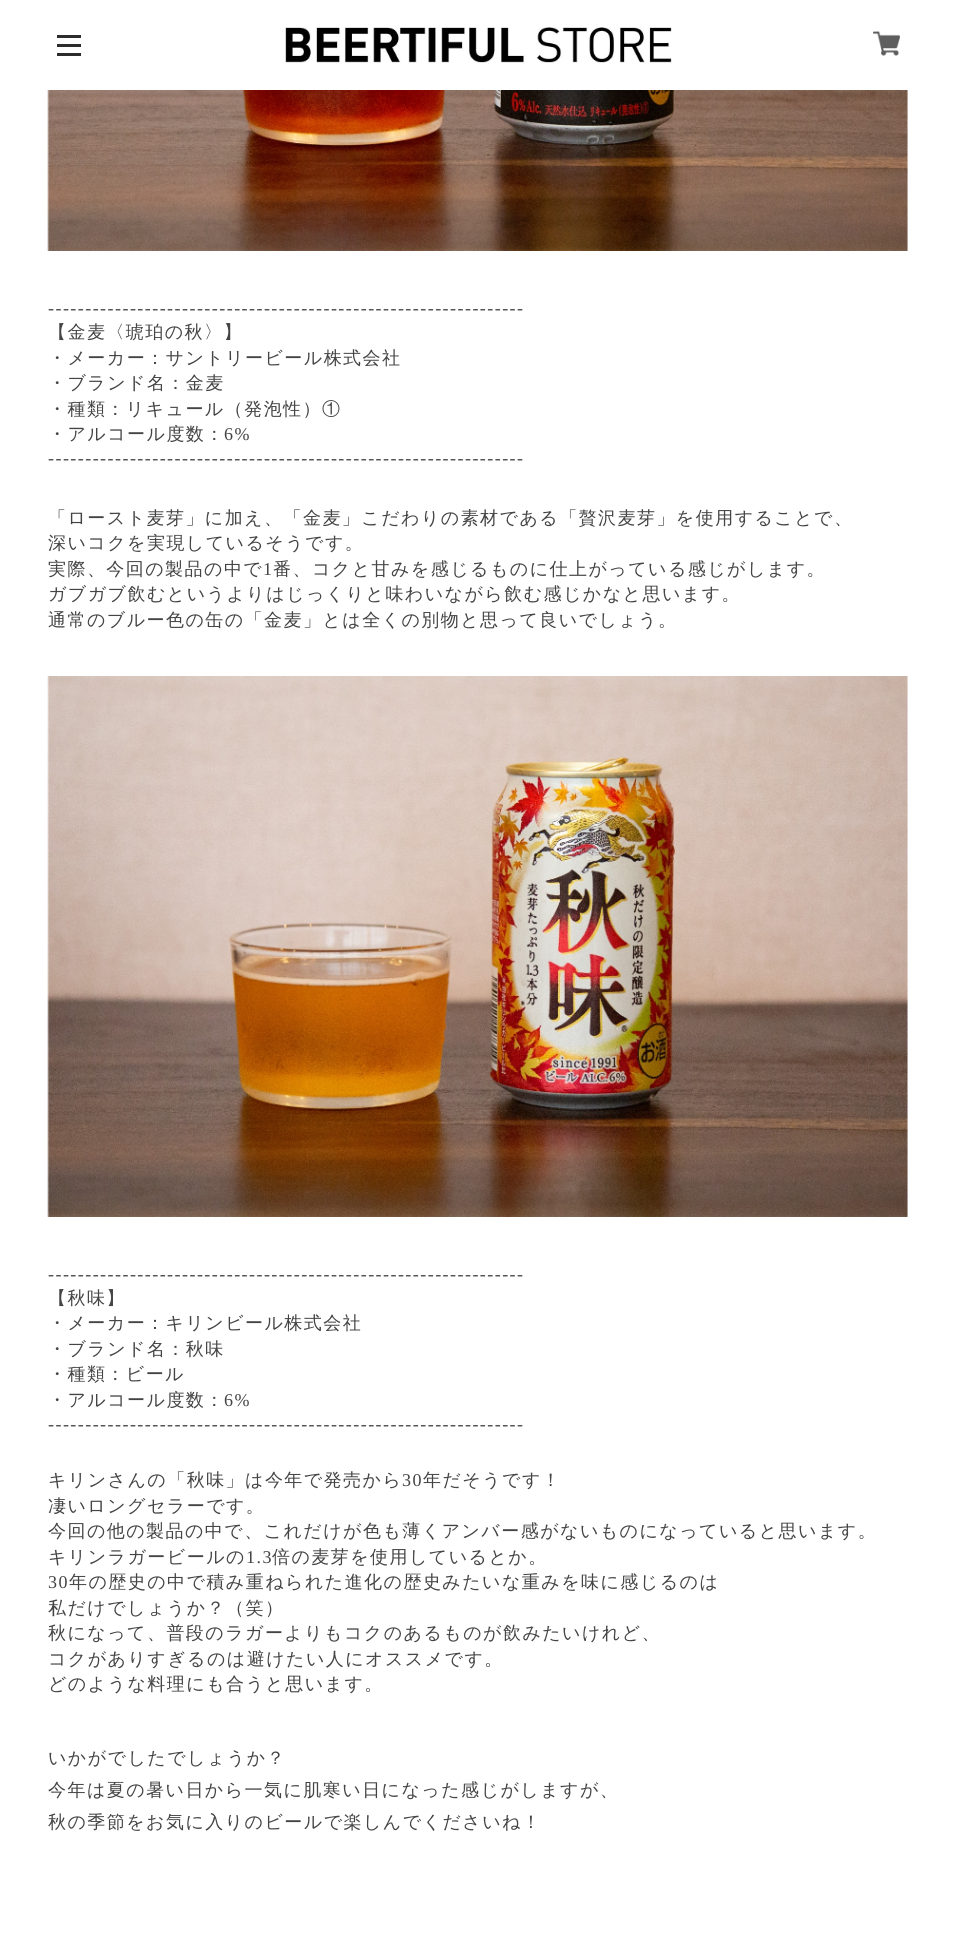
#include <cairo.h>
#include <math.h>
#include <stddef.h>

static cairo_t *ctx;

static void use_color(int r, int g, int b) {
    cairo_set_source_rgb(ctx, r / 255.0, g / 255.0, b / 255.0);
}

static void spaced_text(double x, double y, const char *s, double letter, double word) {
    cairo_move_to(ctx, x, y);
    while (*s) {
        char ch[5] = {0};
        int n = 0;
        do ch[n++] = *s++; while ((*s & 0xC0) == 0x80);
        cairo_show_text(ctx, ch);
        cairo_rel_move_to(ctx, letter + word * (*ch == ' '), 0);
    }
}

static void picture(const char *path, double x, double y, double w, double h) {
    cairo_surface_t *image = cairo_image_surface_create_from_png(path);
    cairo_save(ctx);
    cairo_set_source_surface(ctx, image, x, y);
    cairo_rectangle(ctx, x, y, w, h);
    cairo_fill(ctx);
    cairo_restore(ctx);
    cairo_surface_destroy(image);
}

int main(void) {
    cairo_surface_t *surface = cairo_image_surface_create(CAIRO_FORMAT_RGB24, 955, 1950);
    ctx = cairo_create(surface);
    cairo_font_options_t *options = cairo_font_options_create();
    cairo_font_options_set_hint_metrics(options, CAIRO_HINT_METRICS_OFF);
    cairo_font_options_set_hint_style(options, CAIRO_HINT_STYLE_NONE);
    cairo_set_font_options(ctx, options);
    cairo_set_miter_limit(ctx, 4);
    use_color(255, 255, 255);
    cairo_paint(ctx);
    use_color(44, 44, 44);
    cairo_rectangle(ctx, 57, 35, 24, 3);
    cairo_fill(ctx);
    cairo_rectangle(ctx, 57, 44, 24, 3);
    cairo_fill(ctx);
    cairo_rectangle(ctx, 57, 53, 24, 3);
    cairo_fill(ctx);
    picture("img1.png", 285, 27, 387, 36);
    picture("img2.png", 873, 31, 27, 25);
    picture("img3.png", 47, 90, 861, 161);
    cairo_select_font_face(ctx, "Liberation Serif", CAIRO_FONT_SLANT_NORMAL, CAIRO_FONT_WEIGHT_NORMAL);
    cairo_set_font_size(ctx, 18);
    use_color(68, 68, 68);
    spaced_text(48, 314, "----------------------------------------------------------------", 1.45, 0);
    cairo_select_font_face(ctx, "WenQuanYi Zen Hei Medium", CAIRO_FONT_SLANT_NORMAL, CAIRO_FONT_WEIGHT_NORMAL);
    spaced_text(48, 338, "【金麦〈琥珀の秋〉】", 1.45, 0);
    spaced_text(48, 364, "・メーカー：サントリービール株式会社", 1.45, 0);
    spaced_text(48, 389, "・ブランド名：金麦", 1.45, 0);
    spaced_text(48, 415, "・種類：リキュール（発泡性）①", 1.45, 0);
    spaced_text(48, 440, "・アルコール度数：", 1.45, 0);
    cairo_select_font_face(ctx, "Liberation Serif", CAIRO_FONT_SLANT_NORMAL, CAIRO_FONT_WEIGHT_NORMAL);
    spaced_text(224, 440, "6%", 1.45, 0);
    spaced_text(48, 464, "----------------------------------------------------------------", 1.45, 0);
    cairo_select_font_face(ctx, "WenQuanYi Zen Hei Medium", CAIRO_FONT_SLANT_NORMAL, CAIRO_FONT_WEIGHT_NORMAL);
    spaced_text(48, 524, "「ロースト麦芽」に加え、「金麦」こだわりの素材である「贅沢麦芽」を使用することで、", 1.45, 0);
    spaced_text(48, 549, "深いコクを実現しているそうです。", 1.45, 0);
    spaced_text(48, 575, "実際、今回の製品の中で", 1.45, 0);
    cairo_select_font_face(ctx, "Liberation Serif", CAIRO_FONT_SLANT_NORMAL, CAIRO_FONT_WEIGHT_NORMAL);
    spaced_text(263, 575, "1", 1.45, 0);
    cairo_select_font_face(ctx, "WenQuanYi Zen Hei Medium", CAIRO_FONT_SLANT_NORMAL, CAIRO_FONT_WEIGHT_NORMAL);
    spaced_text(273, 575, "番、コクと甘みを感じるものに仕上がっている感じがします。", 1.45, 0);
    spaced_text(48, 600, "ガブガブ飲むというよりはじっくりと味わいながら飲む感じかなと思います。", 1.45, 0);
    spaced_text(48, 626, "通常のブルー色の缶の「金麦」とは全くの別物と思って良いでしょう。", 1.45, 0);
    picture("img4.png", 47, 676, 861, 541);
    cairo_select_font_face(ctx, "Liberation Serif", CAIRO_FONT_SLANT_NORMAL, CAIRO_FONT_WEIGHT_NORMAL);
    spaced_text(48, 1280, "----------------------------------------------------------------", 1.45, 0);
    cairo_select_font_face(ctx, "WenQuanYi Zen Hei Medium", CAIRO_FONT_SLANT_NORMAL, CAIRO_FONT_WEIGHT_NORMAL);
    spaced_text(48, 1304, "【秋味】", 1.45, 0);
    spaced_text(48, 1329, "・メーカー：キリンビール株式会社", 1.45, 0);
    spaced_text(48, 1355, "・ブランド名：秋味", 1.45, 0);
    spaced_text(48, 1380, "・種類：ビール", 1.45, 0);
    spaced_text(48, 1406, "・アルコール度数：", 1.45, 0);
    cairo_select_font_face(ctx, "Liberation Serif", CAIRO_FONT_SLANT_NORMAL, CAIRO_FONT_WEIGHT_NORMAL);
    spaced_text(224, 1406, "6%", 1.45, 0);
    spaced_text(48, 1430, "----------------------------------------------------------------", 1.45, 0);
    cairo_select_font_face(ctx, "WenQuanYi Zen Hei Medium", CAIRO_FONT_SLANT_NORMAL, CAIRO_FONT_WEIGHT_NORMAL);
    spaced_text(48, 1486, "キリンさんの「秋味」は今年で発売から", 1.45, 0);
    cairo_select_font_face(ctx, "Liberation Serif", CAIRO_FONT_SLANT_NORMAL, CAIRO_FONT_WEIGHT_NORMAL);
    spaced_text(402, 1486, "30", 1.45, 0);
    cairo_select_font_face(ctx, "WenQuanYi Zen Hei Medium", CAIRO_FONT_SLANT_NORMAL, CAIRO_FONT_WEIGHT_NORMAL);
    spaced_text(423, 1486, "年だそうです！", 1.45, 0);
    spaced_text(48, 1512, "凄いロングセラーです。", 1.45, 0);
    spaced_text(48, 1537, "今回の他の製品の中で、これだけが色も薄くアンバー感がないものになっていると思います。", 1.45, 0);
    spaced_text(48, 1563, "キリンラガービールの", 1.45, 0);
    cairo_select_font_face(ctx, "Liberation Serif", CAIRO_FONT_SLANT_NORMAL, CAIRO_FONT_WEIGHT_NORMAL);
    spaced_text(246, 1563, "1.3", 1.45, 0);
    cairo_select_font_face(ctx, "WenQuanYi Zen Hei Medium", CAIRO_FONT_SLANT_NORMAL, CAIRO_FONT_WEIGHT_NORMAL);
    spaced_text(272, 1563, "倍の麦芽を使用しているとか。", 1.45, 0);
    cairo_select_font_face(ctx, "Liberation Serif", CAIRO_FONT_SLANT_NORMAL, CAIRO_FONT_WEIGHT_NORMAL);
    spaced_text(48, 1588, "30", 1.45, 0);
    cairo_select_font_face(ctx, "WenQuanYi Zen Hei Medium", CAIRO_FONT_SLANT_NORMAL, CAIRO_FONT_WEIGHT_NORMAL);
    spaced_text(69, 1588, "年の歴史の中で積み重ねられた進化の歴史みたいな重みを味に感じるのは", 1.45, 0);
    spaced_text(48, 1614, "私だけでしょうか？（笑）", 1.45, 0);
    spaced_text(48, 1639, "秋になって、普段のラガーよりもコクのあるものが飲みたいけれど、", 1.45, 0);
    spaced_text(48, 1665, "コクがありすぎるのは避けたい人にオススメです。", 1.45, 0);
    spaced_text(48, 1690, "どのような料理にも合うと思います。", 1.45, 0);
    spaced_text(48, 1764, "いかがでしたでしょうか？", 1.45, 0);
    spaced_text(48, 1796, "今年は夏の暑い日から一気に肌寒い日になった感じがしますが、", 1.45, 0);
    spaced_text(48, 1828, "秋の季節をお気に入りのビールで楽しんでくださいね！", 1.45, 0);
    cairo_surface_write_to_png(surface, "result.png");
    cairo_font_options_destroy(options);
    cairo_destroy(ctx);
    cairo_surface_destroy(surface);
    return 0;
}
